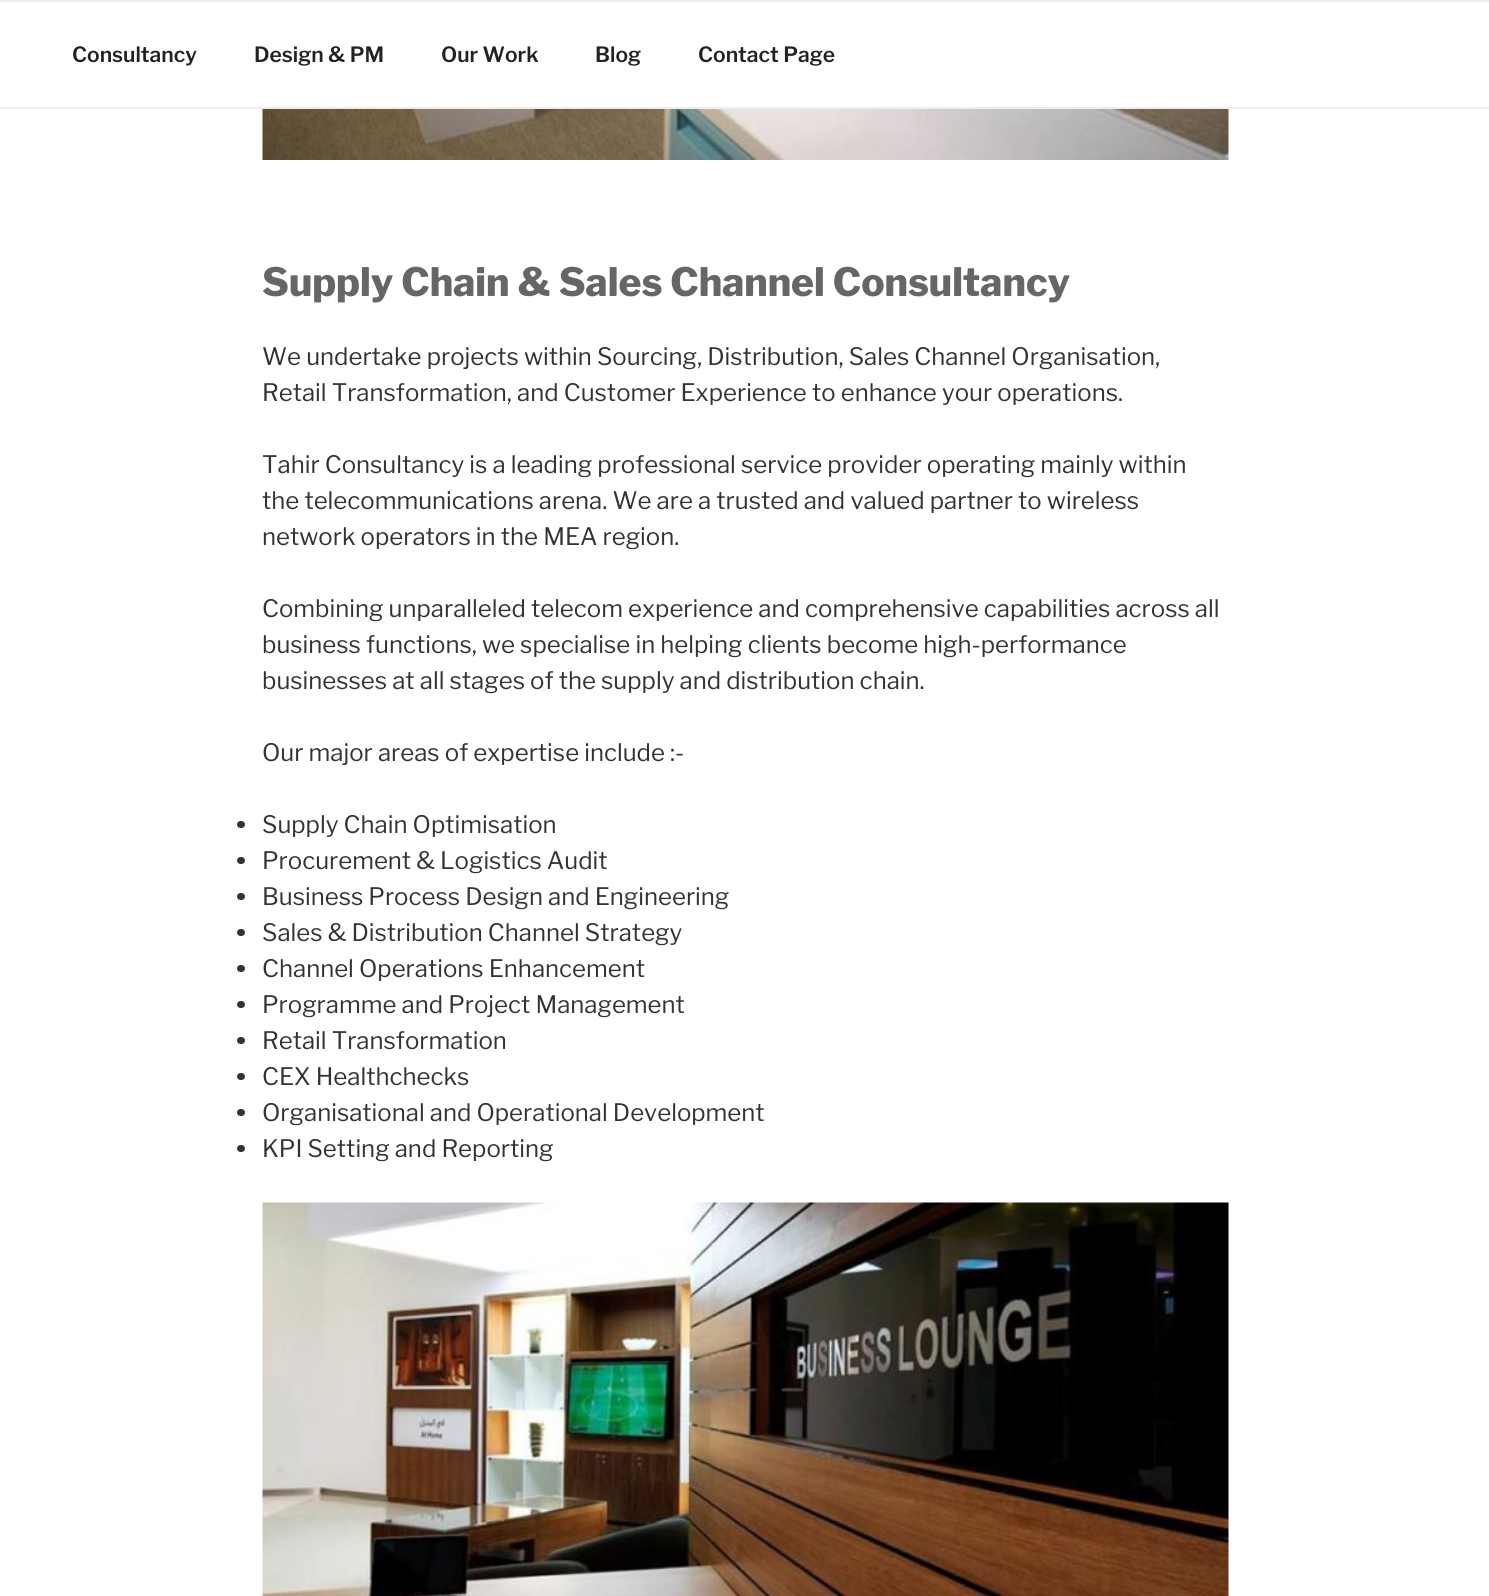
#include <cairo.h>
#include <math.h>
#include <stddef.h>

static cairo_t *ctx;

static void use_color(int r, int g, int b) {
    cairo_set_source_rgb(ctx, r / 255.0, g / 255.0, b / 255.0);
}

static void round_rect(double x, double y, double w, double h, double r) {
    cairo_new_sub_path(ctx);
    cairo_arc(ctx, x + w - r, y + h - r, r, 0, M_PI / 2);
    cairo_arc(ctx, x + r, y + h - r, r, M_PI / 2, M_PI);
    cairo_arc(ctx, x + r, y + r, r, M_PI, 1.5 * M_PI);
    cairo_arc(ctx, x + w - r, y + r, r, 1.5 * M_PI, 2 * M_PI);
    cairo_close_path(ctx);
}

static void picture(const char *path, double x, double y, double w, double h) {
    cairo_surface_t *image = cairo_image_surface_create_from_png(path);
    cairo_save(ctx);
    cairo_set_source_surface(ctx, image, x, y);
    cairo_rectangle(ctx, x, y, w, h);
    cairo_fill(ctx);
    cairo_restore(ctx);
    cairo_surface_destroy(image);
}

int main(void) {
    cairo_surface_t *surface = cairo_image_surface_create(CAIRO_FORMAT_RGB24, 1489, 1596);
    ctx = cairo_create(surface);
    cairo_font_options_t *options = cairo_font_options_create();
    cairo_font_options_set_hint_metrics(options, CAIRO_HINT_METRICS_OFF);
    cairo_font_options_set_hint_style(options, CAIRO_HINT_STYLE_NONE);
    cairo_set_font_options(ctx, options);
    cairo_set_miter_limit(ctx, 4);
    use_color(255, 255, 255);
    cairo_paint(ctx);
    use_color(238, 238, 238);
    cairo_rectangle(ctx, 0, 0, 1489, 2);
    cairo_fill(ctx);
    cairo_rectangle(ctx, 0, 107, 1489, 2);
    cairo_fill(ctx);
    cairo_select_font_face(ctx, "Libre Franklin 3 Thin", CAIRO_FONT_SLANT_NORMAL, CAIRO_FONT_WEIGHT_NORMAL);
    cairo_set_font_size(ctx, 21);
    use_color(34, 34, 34);
    cairo_move_to(ctx, 72, 62);
    cairo_show_text(ctx, "Consultancy");
    cairo_move_to(ctx, 254, 62);
    cairo_show_text(ctx, "Design & PM");
    cairo_move_to(ctx, 441, 62);
    cairo_show_text(ctx, "Our Work");
    cairo_move_to(ctx, 595, 62);
    cairo_show_text(ctx, "Blog");
    cairo_move_to(ctx, 698, 62);
    cairo_show_text(ctx, "Contact Page");
    picture("img1.png", 262, 109, 967, 51);
    cairo_select_font_face(ctx, "Libre Franklin Thin", CAIRO_FONT_SLANT_NORMAL, CAIRO_FONT_WEIGHT_NORMAL);
    cairo_set_font_size(ctx, 39);
    use_color(102, 102, 102);
    cairo_move_to(ctx, 262, 296);
    cairo_show_text(ctx, "Supply Chain & Sales Channel Consultancy");
    cairo_select_font_face(ctx, "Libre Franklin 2 Thin", CAIRO_FONT_SLANT_NORMAL, CAIRO_FONT_WEIGHT_NORMAL);
    cairo_set_font_size(ctx, 24);
    use_color(51, 51, 51);
    cairo_move_to(ctx, 262, 365);
    cairo_show_text(ctx, "We undertake projects within Sourcing, Distribution, Sales Channel Organisation,");
    cairo_move_to(ctx, 262, 401);
    cairo_show_text(ctx, "Retail Transformation, and Customer Experience to enhance your operations.");
    cairo_move_to(ctx, 262, 473);
    cairo_show_text(ctx, "Tahir Consultancy is a leading professional service provider operating mainly within");
    cairo_move_to(ctx, 262, 509);
    cairo_show_text(ctx, "the telecommunications arena. We are a trusted and valued partner to wireless");
    cairo_move_to(ctx, 262, 545);
    cairo_show_text(ctx, "network operators in the MEA region.");
    cairo_move_to(ctx, 262, 617);
    cairo_show_text(ctx, "Combining unparalleled telecom experience and comprehensive capabilities across all");
    cairo_move_to(ctx, 262, 653);
    cairo_show_text(ctx, "business functions, we specialise in helping clients become high-performance");
    cairo_move_to(ctx, 262, 689);
    cairo_show_text(ctx, "businesses at all stages of the supply and distribution chain.");
    cairo_move_to(ctx, 262, 761);
    cairo_show_text(ctx, "Our major areas of expertise include :-");
    round_rect(237, 821, 8, 7, 3.5);
    cairo_fill(ctx);
    cairo_move_to(ctx, 262, 833);
    cairo_show_text(ctx, "Supply Chain Optimisation");
    round_rect(237, 857, 8, 7, 3.5);
    cairo_fill(ctx);
    cairo_move_to(ctx, 262, 869);
    cairo_show_text(ctx, "Procurement & Logistics Audit");
    round_rect(237, 893, 8, 7, 3.5);
    cairo_fill(ctx);
    cairo_move_to(ctx, 262, 905);
    cairo_show_text(ctx, "Business Process Design and Engineering");
    round_rect(237, 929, 8, 7, 3.5);
    cairo_fill(ctx);
    cairo_move_to(ctx, 262, 941);
    cairo_show_text(ctx, "Sales & Distribution Channel Strategy");
    round_rect(237, 965, 8, 7, 3.5);
    cairo_fill(ctx);
    cairo_move_to(ctx, 262, 977);
    cairo_show_text(ctx, "Channel Operations Enhancement");
    round_rect(237, 1001, 8, 7, 3.5);
    cairo_fill(ctx);
    cairo_move_to(ctx, 262, 1013);
    cairo_show_text(ctx, "Programme and Project Management");
    round_rect(237, 1037, 8, 7, 3.5);
    cairo_fill(ctx);
    cairo_move_to(ctx, 262, 1049);
    cairo_show_text(ctx, "Retail Transformation");
    round_rect(237, 1073, 8, 7, 3.5);
    cairo_fill(ctx);
    cairo_move_to(ctx, 262, 1085);
    cairo_show_text(ctx, "CEX Healthchecks");
    round_rect(237, 1109, 8, 7, 3.5);
    cairo_fill(ctx);
    cairo_move_to(ctx, 262, 1121);
    cairo_show_text(ctx, "Organisational and Operational Development");
    round_rect(237, 1145, 8, 7, 3.5);
    cairo_fill(ctx);
    cairo_move_to(ctx, 262, 1157);
    cairo_show_text(ctx, "KPI Setting and Reporting");
    picture("img2.png", 262, 1202, 967, 394);
    cairo_surface_write_to_png(surface, "result.png");
    cairo_font_options_destroy(options);
    cairo_destroy(ctx);
    cairo_surface_destroy(surface);
    return 0;
}
